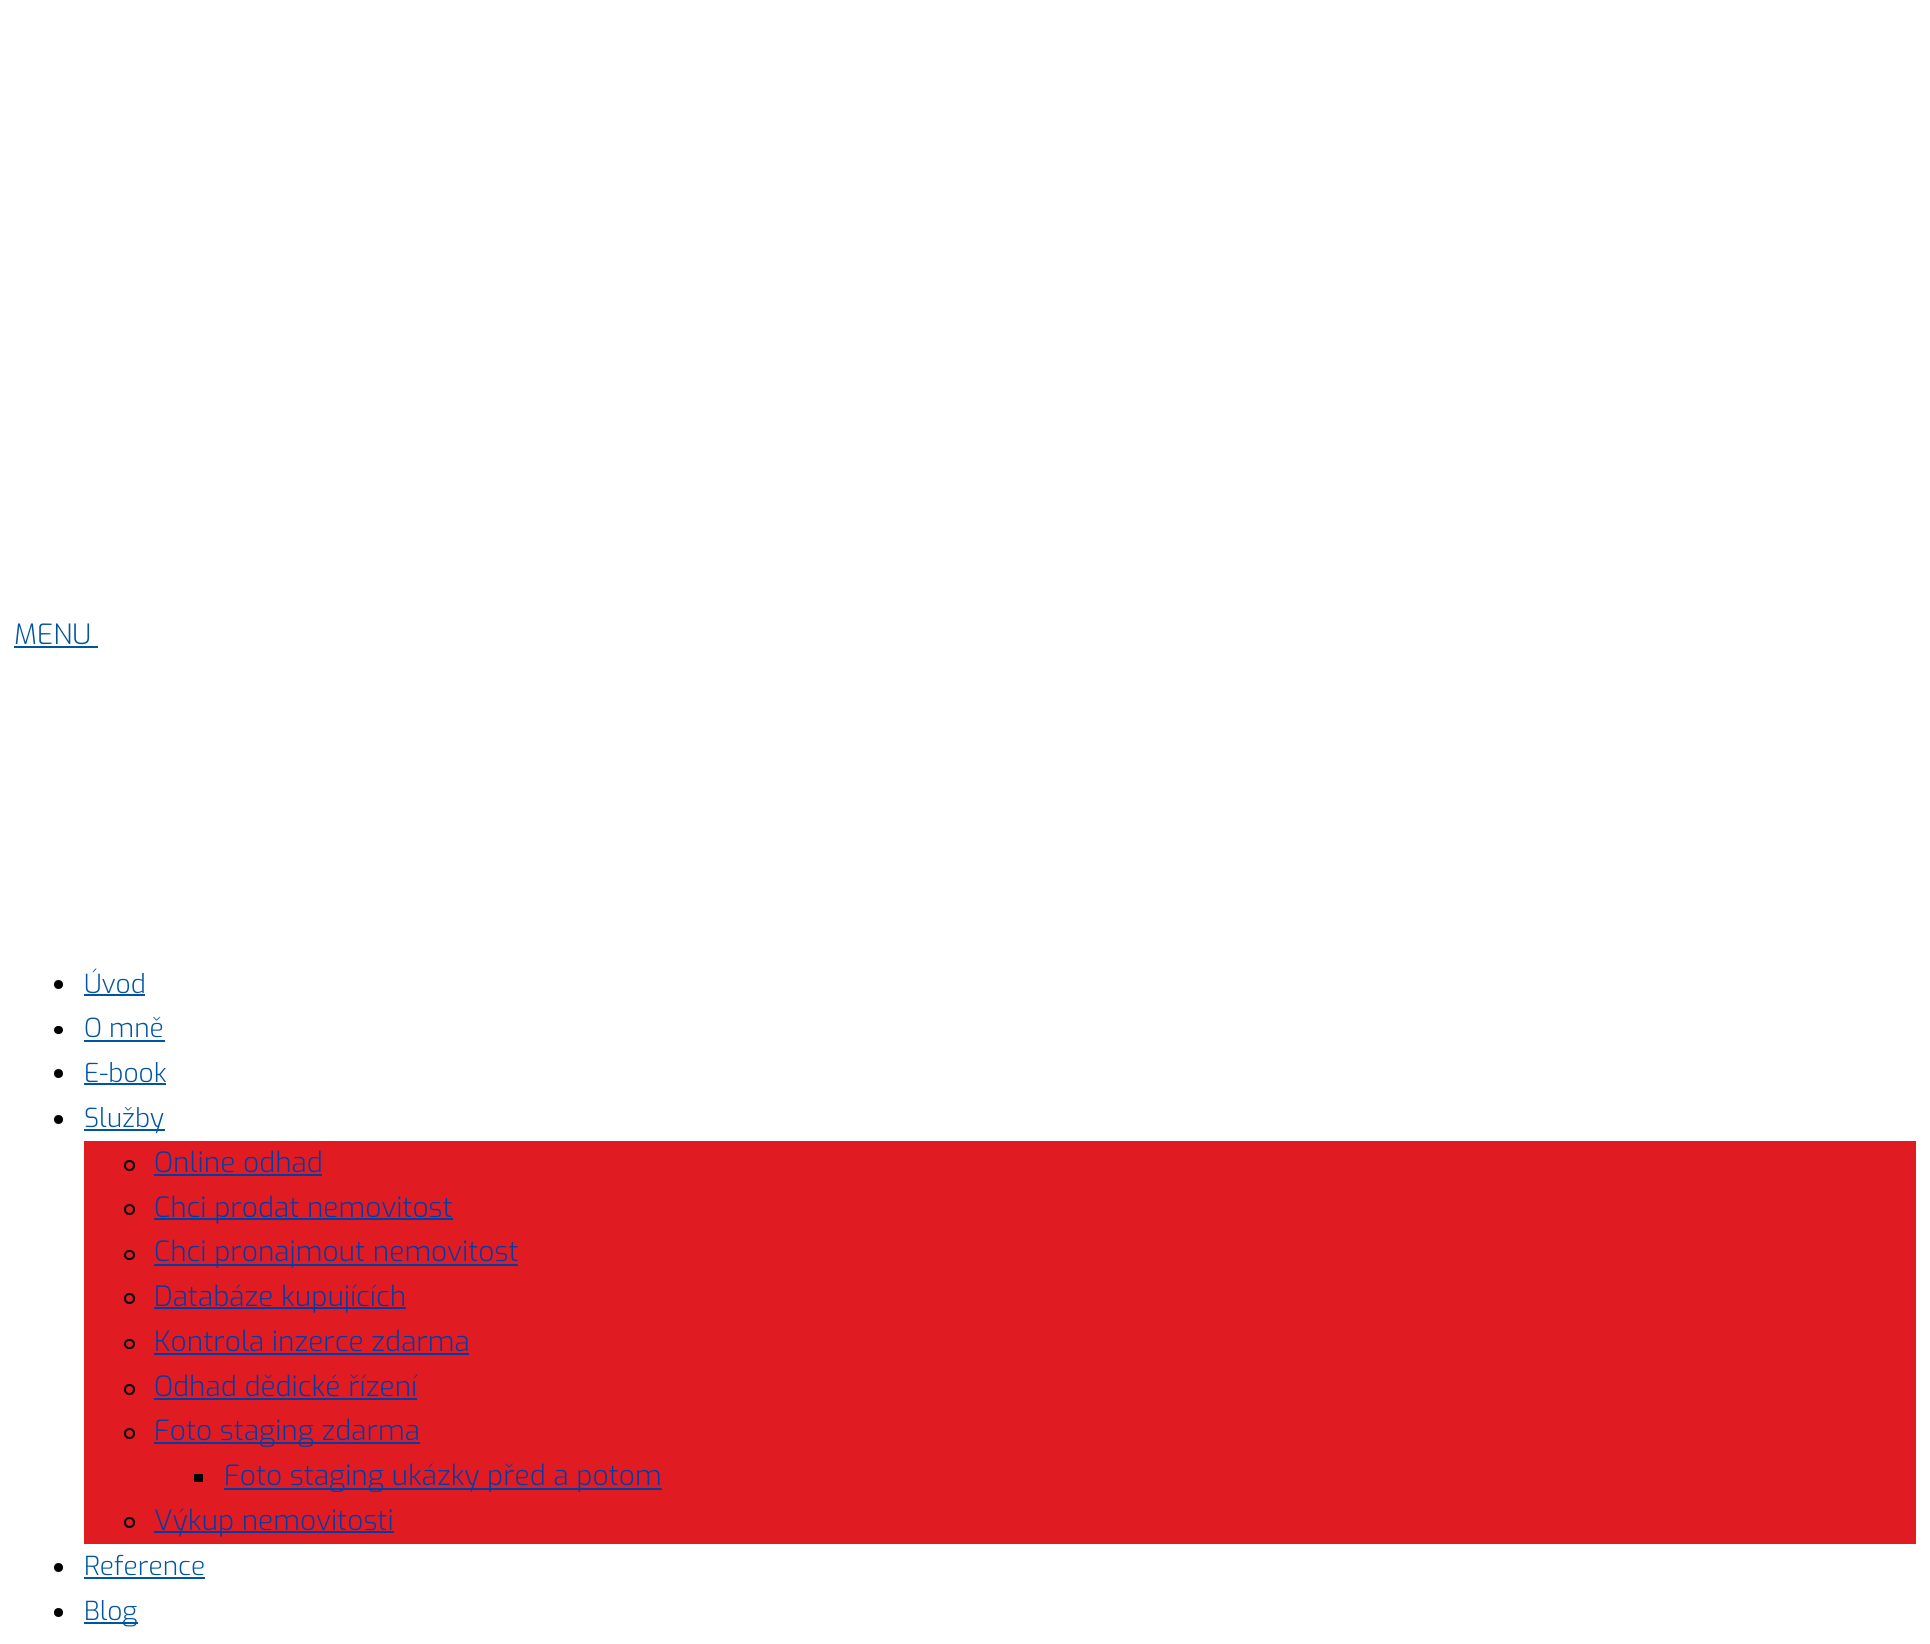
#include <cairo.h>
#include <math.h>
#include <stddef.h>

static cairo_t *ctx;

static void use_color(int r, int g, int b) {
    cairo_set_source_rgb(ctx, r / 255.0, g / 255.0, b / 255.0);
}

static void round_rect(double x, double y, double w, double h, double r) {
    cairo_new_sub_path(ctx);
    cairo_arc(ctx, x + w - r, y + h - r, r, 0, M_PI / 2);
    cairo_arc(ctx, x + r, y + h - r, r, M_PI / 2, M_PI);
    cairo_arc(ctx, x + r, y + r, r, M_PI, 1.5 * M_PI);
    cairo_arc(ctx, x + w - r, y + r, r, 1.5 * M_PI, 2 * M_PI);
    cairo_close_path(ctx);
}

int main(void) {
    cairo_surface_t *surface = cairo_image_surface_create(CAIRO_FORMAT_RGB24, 1930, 1644);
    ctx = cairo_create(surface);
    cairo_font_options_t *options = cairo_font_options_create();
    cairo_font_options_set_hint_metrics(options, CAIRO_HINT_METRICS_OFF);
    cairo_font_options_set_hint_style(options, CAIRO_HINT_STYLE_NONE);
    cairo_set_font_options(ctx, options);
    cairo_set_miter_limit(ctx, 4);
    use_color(255, 255, 255);
    cairo_paint(ctx);
    cairo_select_font_face(ctx, "Exo Light", CAIRO_FONT_SLANT_NORMAL, CAIRO_FONT_WEIGHT_NORMAL);
    cairo_set_font_size(ctx, 28);
    use_color(0, 84, 164);
    cairo_move_to(ctx, 14, 644);
    cairo_show_text(ctx, "MENU");
    cairo_rectangle(ctx, 14, 646, 84, 2);
    cairo_fill(ctx);
    use_color(0, 0, 0);
    cairo_arc(ctx, 58.5, 984.5, 4.5, 0, 2 * M_PI);
    cairo_fill(ctx);
    cairo_set_font_size(ctx, 26.25);
    use_color(0, 84, 164);
    cairo_move_to(ctx, 84, 993);
    cairo_show_text(ctx, "Úvod");
    cairo_rectangle(ctx, 84, 994, 61, 2);
    cairo_fill(ctx);
    use_color(0, 0, 0);
    round_rect(54, 1026, 9, 8, 4);
    cairo_fill(ctx);
    use_color(0, 84, 164);
    cairo_move_to(ctx, 84, 1037);
    cairo_show_text(ctx, "O mně");
    cairo_rectangle(ctx, 84, 1040, 81, 2);
    cairo_fill(ctx);
    use_color(0, 0, 0);
    cairo_arc(ctx, 58.5, 1073.5, 4.5, 0, 2 * M_PI);
    cairo_fill(ctx);
    use_color(0, 84, 164);
    cairo_move_to(ctx, 84, 1082);
    cairo_show_text(ctx, "E-book");
    cairo_rectangle(ctx, 84, 1083, 82, 2);
    cairo_fill(ctx);
    use_color(0, 0, 0);
    cairo_arc(ctx, 58.5, 1119.5, 4.5, 0, 2 * M_PI);
    cairo_fill(ctx);
    use_color(0, 84, 164);
    cairo_rectangle(ctx, 84, 1129, 81, 2);
    cairo_fill(ctx);
    cairo_move_to(ctx, 84, 1127);
    cairo_show_text(ctx, "Služby");
    use_color(225, 27, 34);
    cairo_rectangle(ctx, 84, 1141, 1832, 403);
    cairo_fill(ctx);
    cairo_arc(ctx, 129.5, 1165.5, 4.5, 0, 2 * M_PI);
    use_color(0, 0, 0);
    cairo_stroke(ctx);
    cairo_set_font_size(ctx, 28);
    use_color(0, 61, 165);
    cairo_move_to(ctx, 154, 1172);
    cairo_show_text(ctx, "Online odhad");
    cairo_rectangle(ctx, 154, 1174, 168, 2);
    cairo_fill(ctx);
    cairo_arc(ctx, 129.5, 1209.5, 4.5, 0, 2 * M_PI);
    use_color(0, 0, 0);
    cairo_stroke(ctx);
    use_color(0, 61, 165);
    cairo_rectangle(ctx, 154, 1218, 299, 2);
    cairo_fill(ctx);
    cairo_move_to(ctx, 154, 1217);
    cairo_show_text(ctx, "Chci prodat nemovitost");
    round_rect(125, 1251, 9, 8, 4);
    use_color(0, 0, 0);
    cairo_stroke(ctx);
    use_color(0, 61, 165);
    cairo_rectangle(ctx, 154, 1264, 364, 2);
    cairo_fill(ctx);
    cairo_move_to(ctx, 154, 1261);
    cairo_show_text(ctx, "Chci pronajmout nemovitost");
    cairo_new_path(ctx);
    cairo_arc(ctx, 129.5, 1298.5, 4.5, 0, 2 * M_PI);
    use_color(0, 0, 0);
    cairo_stroke(ctx);
    use_color(0, 61, 165);
    cairo_rectangle(ctx, 154, 1307, 252, 2);
    cairo_fill(ctx);
    cairo_move_to(ctx, 154, 1306);
    cairo_show_text(ctx, "Databáze kupujících");
    round_rect(125, 1340, 9, 8, 4);
    use_color(0, 0, 0);
    cairo_stroke(ctx);
    use_color(0, 61, 165);
    cairo_move_to(ctx, 154, 1351);
    cairo_show_text(ctx, "Kontrola inzerce zdarma");
    cairo_rectangle(ctx, 154, 1353, 315, 2);
    cairo_fill(ctx);
    cairo_arc(ctx, 129.5, 1389.5, 4.5, 0, 2 * M_PI);
    use_color(0, 0, 0);
    cairo_stroke(ctx);
    use_color(0, 61, 165);
    cairo_move_to(ctx, 154, 1396);
    cairo_show_text(ctx, "Odhad dědické řízení");
    cairo_rectangle(ctx, 154, 1398, 263, 2);
    cairo_fill(ctx);
    cairo_arc(ctx, 129.5, 1433.5, 4.5, 0, 2 * M_PI);
    use_color(0, 0, 0);
    cairo_stroke(ctx);
    use_color(0, 61, 165);
    cairo_rectangle(ctx, 154, 1442, 266, 2);
    cairo_fill(ctx);
    cairo_move_to(ctx, 154, 1440);
    cairo_show_text(ctx, "Foto staging zdarma");
    use_color(0, 0, 0);
    cairo_rectangle(ctx, 194, 1474, 9, 8);
    cairo_fill(ctx);
    use_color(0, 61, 165);
    cairo_rectangle(ctx, 224, 1488, 438, 2);
    cairo_fill(ctx);
    cairo_move_to(ctx, 224, 1485);
    cairo_show_text(ctx, "Foto staging ukázky před a potom");
    cairo_new_path(ctx);
    cairo_arc(ctx, 129.5, 1522.5, 4.5, 0, 2 * M_PI);
    use_color(0, 0, 0);
    cairo_stroke(ctx);
    use_color(0, 61, 165);
    cairo_rectangle(ctx, 154, 1531, 240, 2);
    cairo_fill(ctx);
    cairo_move_to(ctx, 154, 1530);
    cairo_show_text(ctx, "Výkup nemovitosti");
    use_color(0, 0, 0);
    cairo_new_path(ctx);
    cairo_arc(ctx, 58.5, 1567.5, 4.5, 0, 2 * M_PI);
    cairo_fill(ctx);
    cairo_set_font_size(ctx, 26.25);
    use_color(0, 84, 164);
    cairo_move_to(ctx, 84, 1575);
    cairo_show_text(ctx, "Reference");
    cairo_rectangle(ctx, 84, 1577, 121, 2);
    cairo_fill(ctx);
    use_color(0, 0, 0);
    cairo_arc(ctx, 58.5, 1612.5, 4.5, 0, 2 * M_PI);
    cairo_fill(ctx);
    use_color(0, 84, 164);
    cairo_rectangle(ctx, 84, 1622, 54, 2);
    cairo_fill(ctx);
    cairo_move_to(ctx, 84, 1620);
    cairo_show_text(ctx, "Blog");
    cairo_surface_write_to_png(surface, "result.png");
    cairo_font_options_destroy(options);
    cairo_destroy(ctx);
    cairo_surface_destroy(surface);
    return 0;
}
